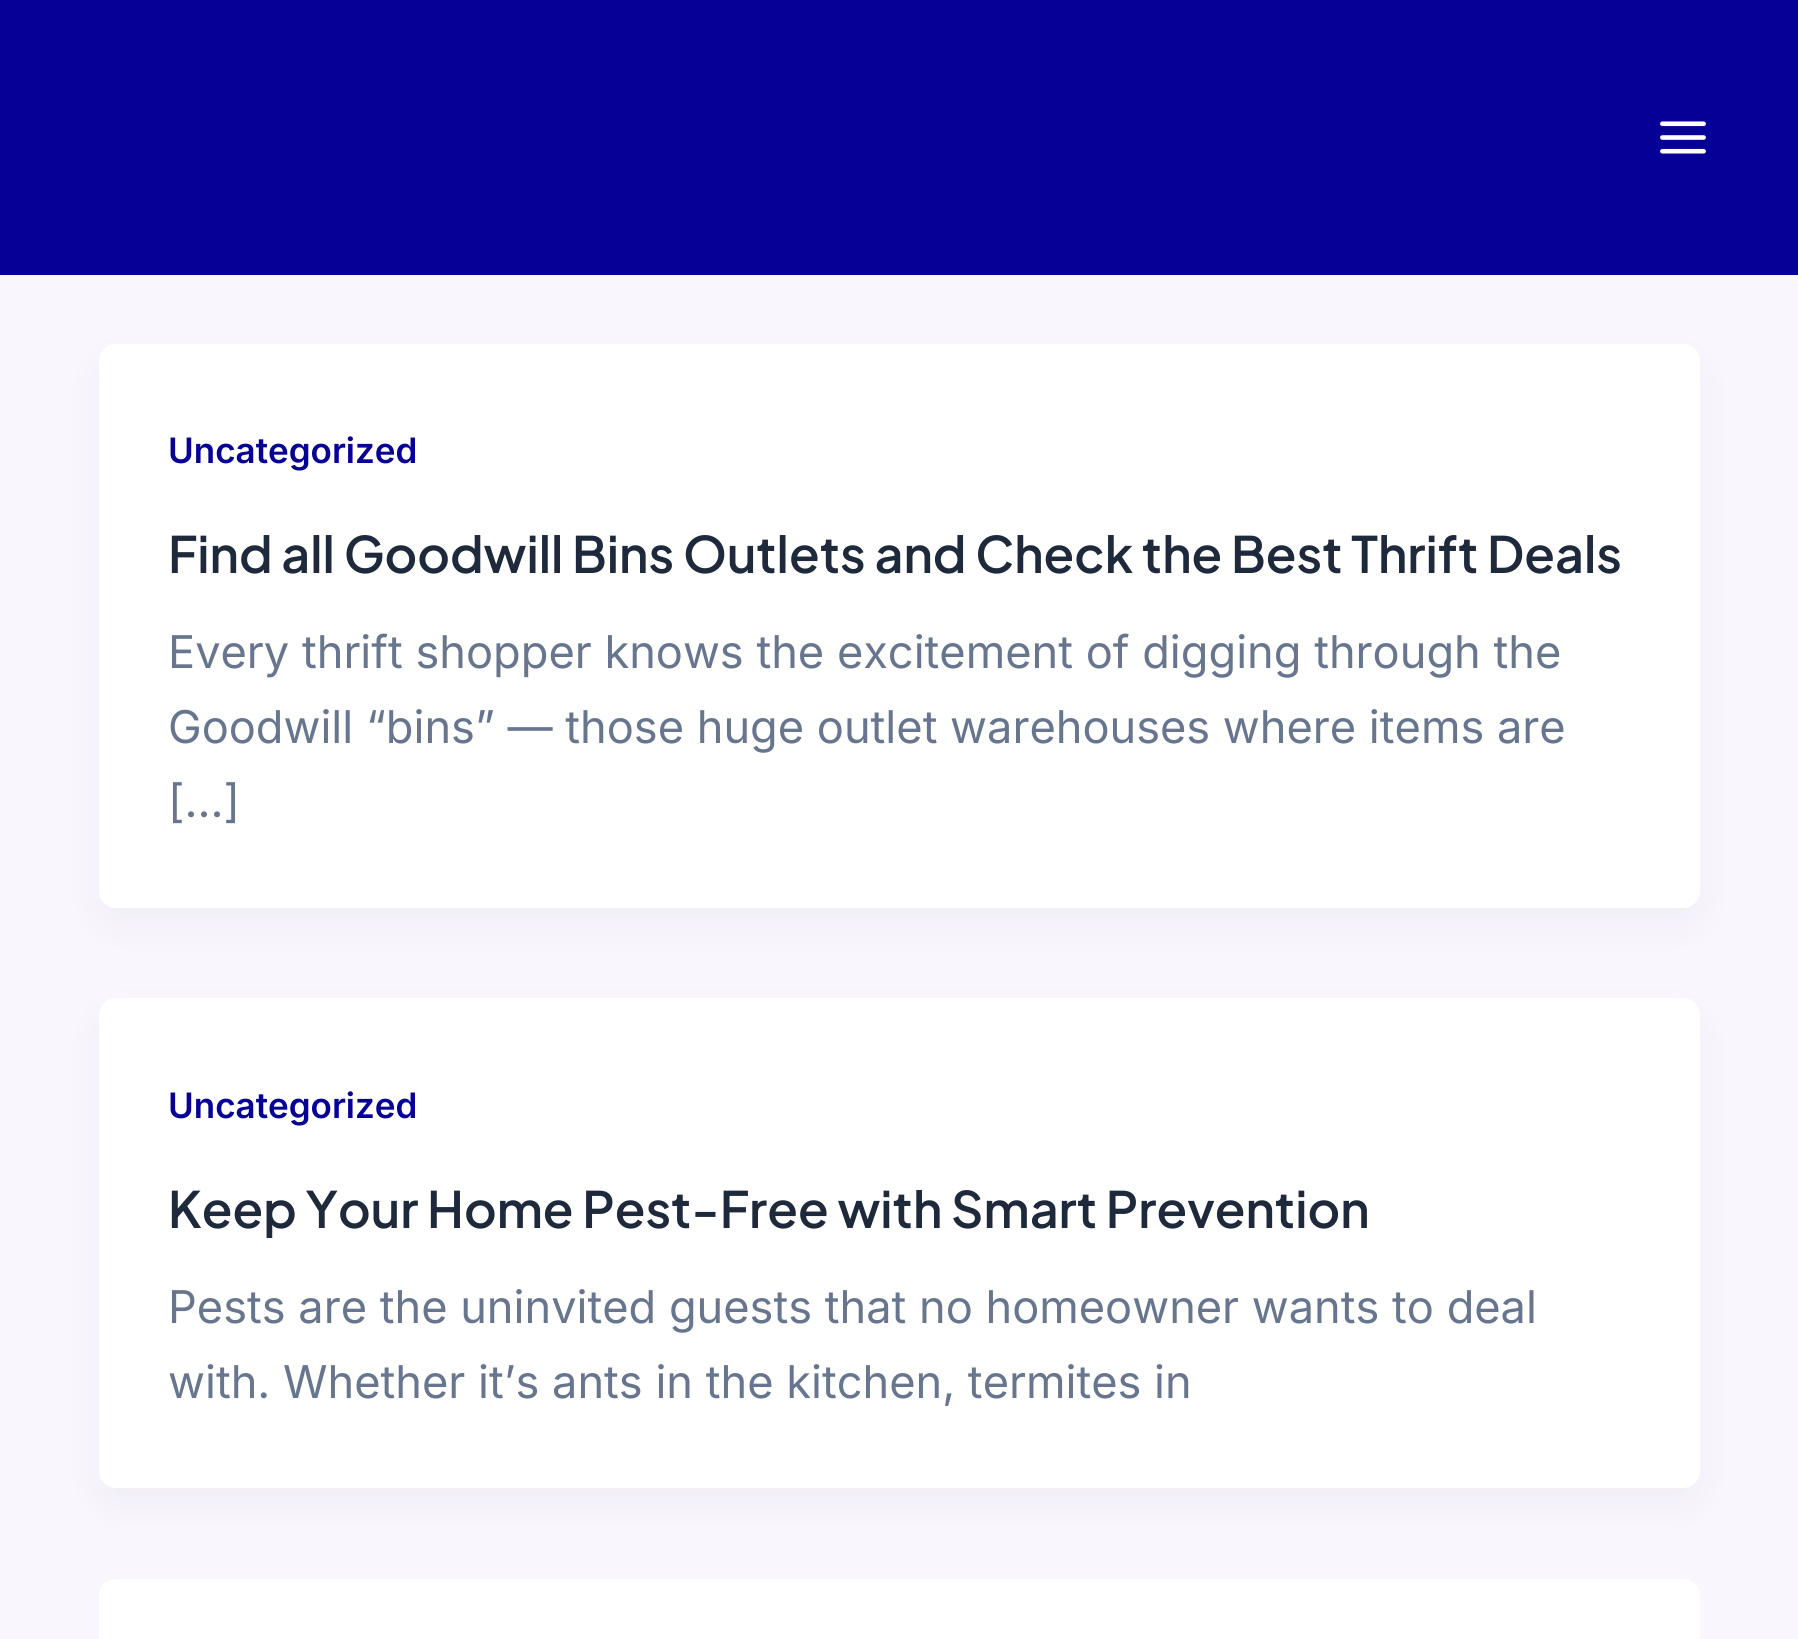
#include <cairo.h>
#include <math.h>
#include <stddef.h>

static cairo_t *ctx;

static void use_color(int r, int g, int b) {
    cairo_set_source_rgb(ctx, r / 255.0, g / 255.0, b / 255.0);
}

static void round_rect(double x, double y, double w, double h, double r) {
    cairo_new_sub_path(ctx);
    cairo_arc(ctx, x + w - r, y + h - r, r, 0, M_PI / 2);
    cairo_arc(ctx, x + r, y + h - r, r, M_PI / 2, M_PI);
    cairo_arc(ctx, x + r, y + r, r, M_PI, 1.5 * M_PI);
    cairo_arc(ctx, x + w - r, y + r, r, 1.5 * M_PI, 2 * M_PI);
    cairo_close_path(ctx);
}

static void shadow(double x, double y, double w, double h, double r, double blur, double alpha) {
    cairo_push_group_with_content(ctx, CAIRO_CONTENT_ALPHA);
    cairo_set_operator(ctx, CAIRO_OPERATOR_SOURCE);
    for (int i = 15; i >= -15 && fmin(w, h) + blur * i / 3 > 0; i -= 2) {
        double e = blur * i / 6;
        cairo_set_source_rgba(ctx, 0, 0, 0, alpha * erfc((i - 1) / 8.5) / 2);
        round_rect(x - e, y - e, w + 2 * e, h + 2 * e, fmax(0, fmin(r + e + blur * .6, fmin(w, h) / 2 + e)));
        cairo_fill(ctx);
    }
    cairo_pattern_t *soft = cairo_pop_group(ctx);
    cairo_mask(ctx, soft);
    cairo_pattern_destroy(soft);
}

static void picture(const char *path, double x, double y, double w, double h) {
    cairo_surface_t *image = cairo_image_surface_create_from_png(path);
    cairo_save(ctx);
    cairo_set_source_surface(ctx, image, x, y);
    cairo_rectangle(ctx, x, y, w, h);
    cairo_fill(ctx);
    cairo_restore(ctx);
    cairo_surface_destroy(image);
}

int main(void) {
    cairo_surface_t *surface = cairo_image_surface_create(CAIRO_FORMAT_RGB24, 1798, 1639);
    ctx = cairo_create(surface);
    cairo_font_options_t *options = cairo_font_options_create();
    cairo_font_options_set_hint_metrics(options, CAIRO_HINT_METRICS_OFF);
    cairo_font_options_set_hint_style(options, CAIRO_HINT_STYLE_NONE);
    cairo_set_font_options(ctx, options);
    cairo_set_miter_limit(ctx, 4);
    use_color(249, 246, 254);
    cairo_paint(ctx);
    use_color(6, 0, 151);
    cairo_rectangle(ctx, 0, 0, 1798, 275);
    cairo_fill(ctx);
    picture("img1.png", 1660, 121, 46, 33);
    use_color(16, 24, 40);
    shadow(105, 366, 1589, 553, 11, 20.5, 0.05);
    use_color(255, 255, 255);
    round_rect(99, 344, 1601, 564, 17);
    cairo_fill(ctx);
    cairo_select_font_face(ctx, "Inter SemiBold", CAIRO_FONT_SLANT_NORMAL, CAIRO_FONT_WEIGHT_NORMAL);
    cairo_set_font_size(ctx, 35);
    use_color(6, 0, 151);
    cairo_move_to(ctx, 168, 463);
    cairo_show_text(ctx, "Uncategorized");
    cairo_select_font_face(ctx, "Plus Jakarta Sans SemiBold", CAIRO_FONT_SLANT_NORMAL, CAIRO_FONT_WEIGHT_NORMAL);
    cairo_set_font_size(ctx, 50.15);
    use_color(30, 41, 59);
    cairo_move_to(ctx, 168, 573);
    cairo_show_text(ctx, "Find all Goodwill Bins Outlets and Check the Best Thrift Deals");
    cairo_select_font_face(ctx, "Inter", CAIRO_FONT_SLANT_NORMAL, CAIRO_FONT_WEIGHT_NORMAL);
    cairo_set_font_size(ctx, 45.15);
    use_color(103, 118, 142);
    cairo_move_to(ctx, 168, 668);
    cairo_show_text(ctx, "Every thrift shopper knows the excitement of digging through the");
    cairo_move_to(ctx, 168, 743);
    cairo_show_text(ctx, "Goodwill “bins” — those huge outlet warehouses where items are");
    cairo_move_to(ctx, 168, 817);
    cairo_show_text(ctx, "[…]");
    use_color(16, 24, 40);
    shadow(105, 1020, 1589, 479, 11, 20.5, 0.05);
    use_color(255, 255, 255);
    round_rect(99, 998, 1601, 490, 17);
    cairo_fill(ctx);
    cairo_select_font_face(ctx, "Inter SemiBold", CAIRO_FONT_SLANT_NORMAL, CAIRO_FONT_WEIGHT_NORMAL);
    cairo_set_font_size(ctx, 35);
    use_color(6, 0, 151);
    cairo_move_to(ctx, 168, 1118);
    cairo_show_text(ctx, "Uncategorized");
    cairo_select_font_face(ctx, "Plus Jakarta Sans SemiBold", CAIRO_FONT_SLANT_NORMAL, CAIRO_FONT_WEIGHT_NORMAL);
    cairo_set_font_size(ctx, 50.15);
    use_color(30, 41, 59);
    cairo_move_to(ctx, 168, 1228);
    cairo_show_text(ctx, "Keep Your Home Pest-Free with Smart Prevention");
    cairo_select_font_face(ctx, "Inter", CAIRO_FONT_SLANT_NORMAL, CAIRO_FONT_WEIGHT_NORMAL);
    cairo_set_font_size(ctx, 45.15);
    use_color(103, 118, 142);
    cairo_move_to(ctx, 168, 1323);
    cairo_show_text(ctx, "Pests are the uninvited guests that no homeowner wants to deal");
    cairo_move_to(ctx, 168, 1398);
    cairo_show_text(ctx, "with. Whether it’s ants in the kitchen, termites in");
    use_color(255, 255, 255);
    round_rect(99, 1579, 1601, 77, 17);
    cairo_fill(ctx);
    cairo_surface_write_to_png(surface, "result.png");
    cairo_font_options_destroy(options);
    cairo_destroy(ctx);
    cairo_surface_destroy(surface);
    return 0;
}
